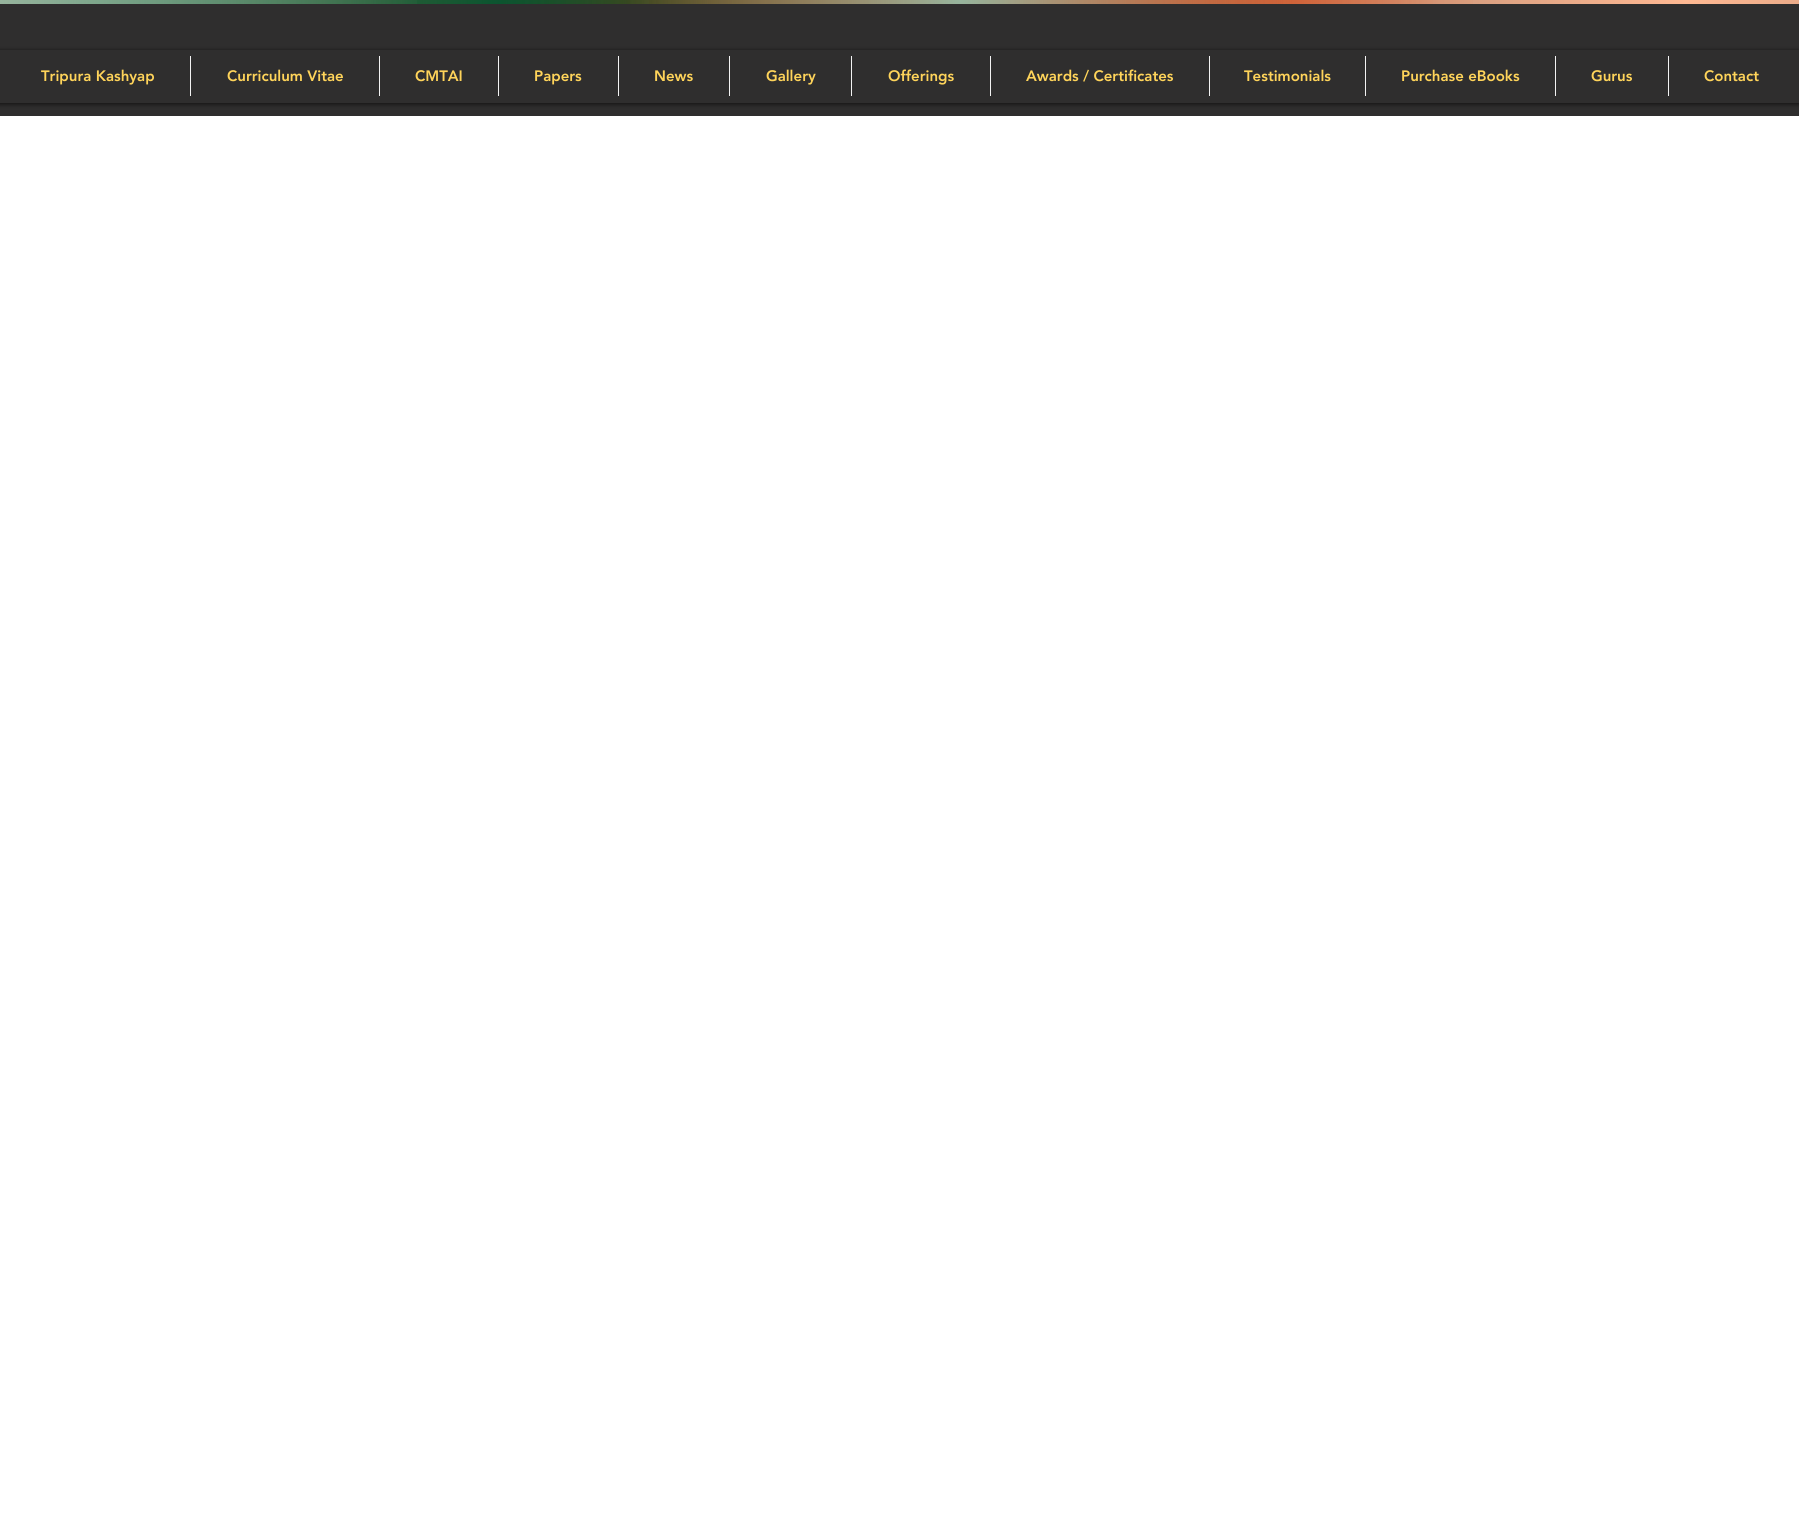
#include <cairo.h>
#include <math.h>
#include <stddef.h>

static cairo_t *ctx;

static void use_color(int r, int g, int b) {
    cairo_set_source_rgb(ctx, r / 255.0, g / 255.0, b / 255.0);
}

static void round_rect(double x, double y, double w, double h, double r) {
    cairo_new_sub_path(ctx);
    cairo_arc(ctx, x + w - r, y + h - r, r, 0, M_PI / 2);
    cairo_arc(ctx, x + r, y + h - r, r, M_PI / 2, M_PI);
    cairo_arc(ctx, x + r, y + r, r, M_PI, 1.5 * M_PI);
    cairo_arc(ctx, x + w - r, y + r, r, 1.5 * M_PI, 2 * M_PI);
    cairo_close_path(ctx);
}

static void shadow(double x, double y, double w, double h, double r, double blur, double alpha) {
    cairo_push_group_with_content(ctx, CAIRO_CONTENT_ALPHA);
    cairo_set_operator(ctx, CAIRO_OPERATOR_SOURCE);
    for (int i = 15; i >= -15 && fmin(w, h) + blur * i / 3 > 0; i -= 2) {
        double e = blur * i / 6;
        cairo_set_source_rgba(ctx, 0, 0, 0, alpha * erfc((i - 1) / 8.5) / 2);
        round_rect(x - e, y - e, w + 2 * e, h + 2 * e, fmax(0, fmin(r + e + blur * .6, fmin(w, h) / 2 + e)));
        cairo_fill(ctx);
    }
    cairo_pattern_t *soft = cairo_pop_group(ctx);
    cairo_mask(ctx, soft);
    cairo_pattern_destroy(soft);
}

int main(void) {
    cairo_surface_t *surface = cairo_image_surface_create(CAIRO_FORMAT_RGB24, 1799, 1538);
    ctx = cairo_create(surface);
    cairo_font_options_t *options = cairo_font_options_create();
    cairo_font_options_set_hint_metrics(options, CAIRO_HINT_METRICS_OFF);
    cairo_font_options_set_hint_style(options, CAIRO_HINT_STYLE_NONE);
    cairo_set_font_options(ctx, options);
    cairo_set_miter_limit(ctx, 4);
    cairo_pattern_t *gradient;
    use_color(255, 255, 255);
    cairo_paint(ctx);
    use_color(47, 46, 46);
    cairo_rectangle(ctx, 0, 4, 1799, 112);
    cairo_fill(ctx);
    gradient = cairo_pattern_create_radial(1686, 0.4, 0, 1686, 0.4, 1686);
    cairo_pattern_add_color_stop_rgba(gradient, 0, 1, 0.725, 0.576, 1);
    cairo_pattern_add_color_stop_rgba(gradient, 0.7, 0.184, 0.18, 0.18, 1);
    cairo_set_source(ctx, gradient);
    cairo_pattern_destroy(gradient);
    cairo_rectangle(ctx, 0, 0, 1799, 4);
    cairo_fill(ctx);
    gradient = cairo_pattern_create_radial(761, 0.8, 0, 761, 0.8, 1039);
    cairo_pattern_add_color_stop_rgba(gradient, 0, 1, 0.267, 0.004, 1);
    cairo_pattern_add_color_stop_rgba(gradient, 0.7, 1, 0.267, 0.004, 0);
    cairo_set_source(ctx, gradient);
    cairo_pattern_destroy(gradient);
    cairo_rectangle(ctx, 48, 0, 1425, 4);
    cairo_fill(ctx);
    gradient = cairo_pattern_create_radial(961, 3.8, 0, 961, 3.8, 961);
    cairo_pattern_add_color_stop_rgba(gradient, 0, 0.843, 0.208, 0.004, 0.99);
    cairo_pattern_add_color_stop_rgba(gradient, 0.5, 0.843, 0.208, 0.004, 0);
    cairo_set_source(ctx, gradient);
    cairo_pattern_destroy(gradient);
    cairo_rectangle(ctx, 512, 0, 921, 4);
    cairo_fill(ctx);
    gradient = cairo_pattern_create_radial(495, 3.5, 0, 495, 3.5, 1305);
    cairo_pattern_add_color_stop_rgba(gradient, 0, 0, 0.275, 0.137, 1);
    cairo_pattern_add_color_stop_rgba(gradient, 0.4, 0, 0.275, 0.137, 0);
    cairo_set_source(ctx, gradient);
    cairo_pattern_destroy(gradient);
    cairo_rectangle(ctx, 0, 0, 1006, 4);
    cairo_fill(ctx);
    gradient = cairo_pattern_create_radial(71, 1.4, 0, 71, 1.4, 1729);
    cairo_pattern_add_color_stop_rgba(gradient, 0, 0.153, 0.471, 0.31, 1);
    cairo_pattern_add_color_stop_rgba(gradient, 0.35, 0.153, 0.471, 0.31, 0);
    cairo_set_source(ctx, gradient);
    cairo_pattern_destroy(gradient);
    cairo_rectangle(ctx, 0, 0, 649, 4);
    cairo_fill(ctx);
    gradient = cairo_pattern_create_radial(0, 3.8, 0, 0, 3.8, 1800);
    cairo_pattern_add_color_stop_rgba(gradient, 0, 0.592, 0.706, 0.616, 1);
    cairo_pattern_add_color_stop_rgba(gradient, 0.24, 0.592, 0.706, 0.616, 0);
    cairo_set_source(ctx, gradient);
    cairo_pattern_destroy(gradient);
    cairo_rectangle(ctx, 0, 0, 417, 4);
    cairo_fill(ctx);
    gradient = cairo_pattern_create_radial(960, 0.7, 0, 960, 0.7, 960);
    cairo_pattern_add_color_stop_rgba(gradient, 0, 0.592, 0.706, 0.616, 1);
    cairo_pattern_add_color_stop_rgba(gradient, 0.35, 0.592, 0.706, 0.616, 0);
    cairo_set_source(ctx, gradient);
    cairo_pattern_destroy(gradient);
    cairo_rectangle(ctx, 630, 0, 660, 4);
    cairo_fill(ctx);
    use_color(0, 0, 0);
    shadow(-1, 51, 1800, 53, 0, 2.5, 0.67);
    use_color(47, 46, 46);
    cairo_rectangle(ctx, 0, 50, 1799, 53);
    cairo_fill(ctx);
    cairo_select_font_face(ctx, "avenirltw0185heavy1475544 Black", CAIRO_FONT_SLANT_NORMAL, CAIRO_FONT_WEIGHT_NORMAL);
    cairo_set_font_size(ctx, 15);
    use_color(255, 212, 90);
    cairo_move_to(ctx, 41, 81);
    cairo_show_text(ctx, "Tripura Kashyap");
    use_color(242, 242, 242);
    cairo_rectangle(ctx, 190, 56, 1, 40);
    cairo_fill(ctx);
    use_color(255, 212, 90);
    cairo_move_to(ctx, 227, 81);
    cairo_show_text(ctx, "Curriculum Vitae");
    use_color(242, 242, 242);
    cairo_rectangle(ctx, 379, 56, 1, 40);
    cairo_fill(ctx);
    use_color(255, 212, 90);
    cairo_move_to(ctx, 415, 81);
    cairo_show_text(ctx, "CMTAI");
    use_color(242, 242, 242);
    cairo_rectangle(ctx, 498, 56, 1, 40);
    cairo_fill(ctx);
    use_color(255, 212, 90);
    cairo_move_to(ctx, 534, 81);
    cairo_show_text(ctx, "Papers");
    use_color(242, 242, 242);
    cairo_rectangle(ctx, 618, 56, 1, 40);
    cairo_fill(ctx);
    use_color(255, 212, 90);
    cairo_move_to(ctx, 654, 81);
    cairo_show_text(ctx, "News");
    use_color(242, 242, 242);
    cairo_rectangle(ctx, 729, 56, 1, 40);
    cairo_fill(ctx);
    use_color(255, 212, 90);
    cairo_move_to(ctx, 766, 81);
    cairo_show_text(ctx, "Gallery");
    use_color(242, 242, 242);
    cairo_rectangle(ctx, 851, 56, 1, 40);
    cairo_fill(ctx);
    use_color(255, 212, 90);
    cairo_move_to(ctx, 888, 81);
    cairo_show_text(ctx, "Offerings");
    use_color(242, 242, 242);
    cairo_rectangle(ctx, 990, 56, 1, 40);
    cairo_fill(ctx);
    use_color(255, 212, 90);
    cairo_move_to(ctx, 1026, 81);
    cairo_show_text(ctx, "Awards / Certificates");
    use_color(242, 242, 242);
    cairo_rectangle(ctx, 1209, 56, 1, 40);
    cairo_fill(ctx);
    use_color(255, 212, 90);
    cairo_move_to(ctx, 1244, 81);
    cairo_show_text(ctx, "Testimonials");
    use_color(242, 242, 242);
    cairo_rectangle(ctx, 1365, 56, 1, 40);
    cairo_fill(ctx);
    use_color(255, 212, 90);
    cairo_move_to(ctx, 1401, 81);
    cairo_show_text(ctx, "Purchase eBooks");
    use_color(242, 242, 242);
    cairo_rectangle(ctx, 1555, 56, 1, 40);
    cairo_fill(ctx);
    use_color(255, 212, 90);
    cairo_move_to(ctx, 1591, 81);
    cairo_show_text(ctx, "Gurus");
    use_color(242, 242, 242);
    cairo_rectangle(ctx, 1668, 56, 1, 40);
    cairo_fill(ctx);
    use_color(255, 212, 90);
    cairo_move_to(ctx, 1704, 81);
    cairo_show_text(ctx, "Contact");
    cairo_surface_write_to_png(surface, "result.png");
    cairo_font_options_destroy(options);
    cairo_destroy(ctx);
    cairo_surface_destroy(surface);
    return 0;
}
